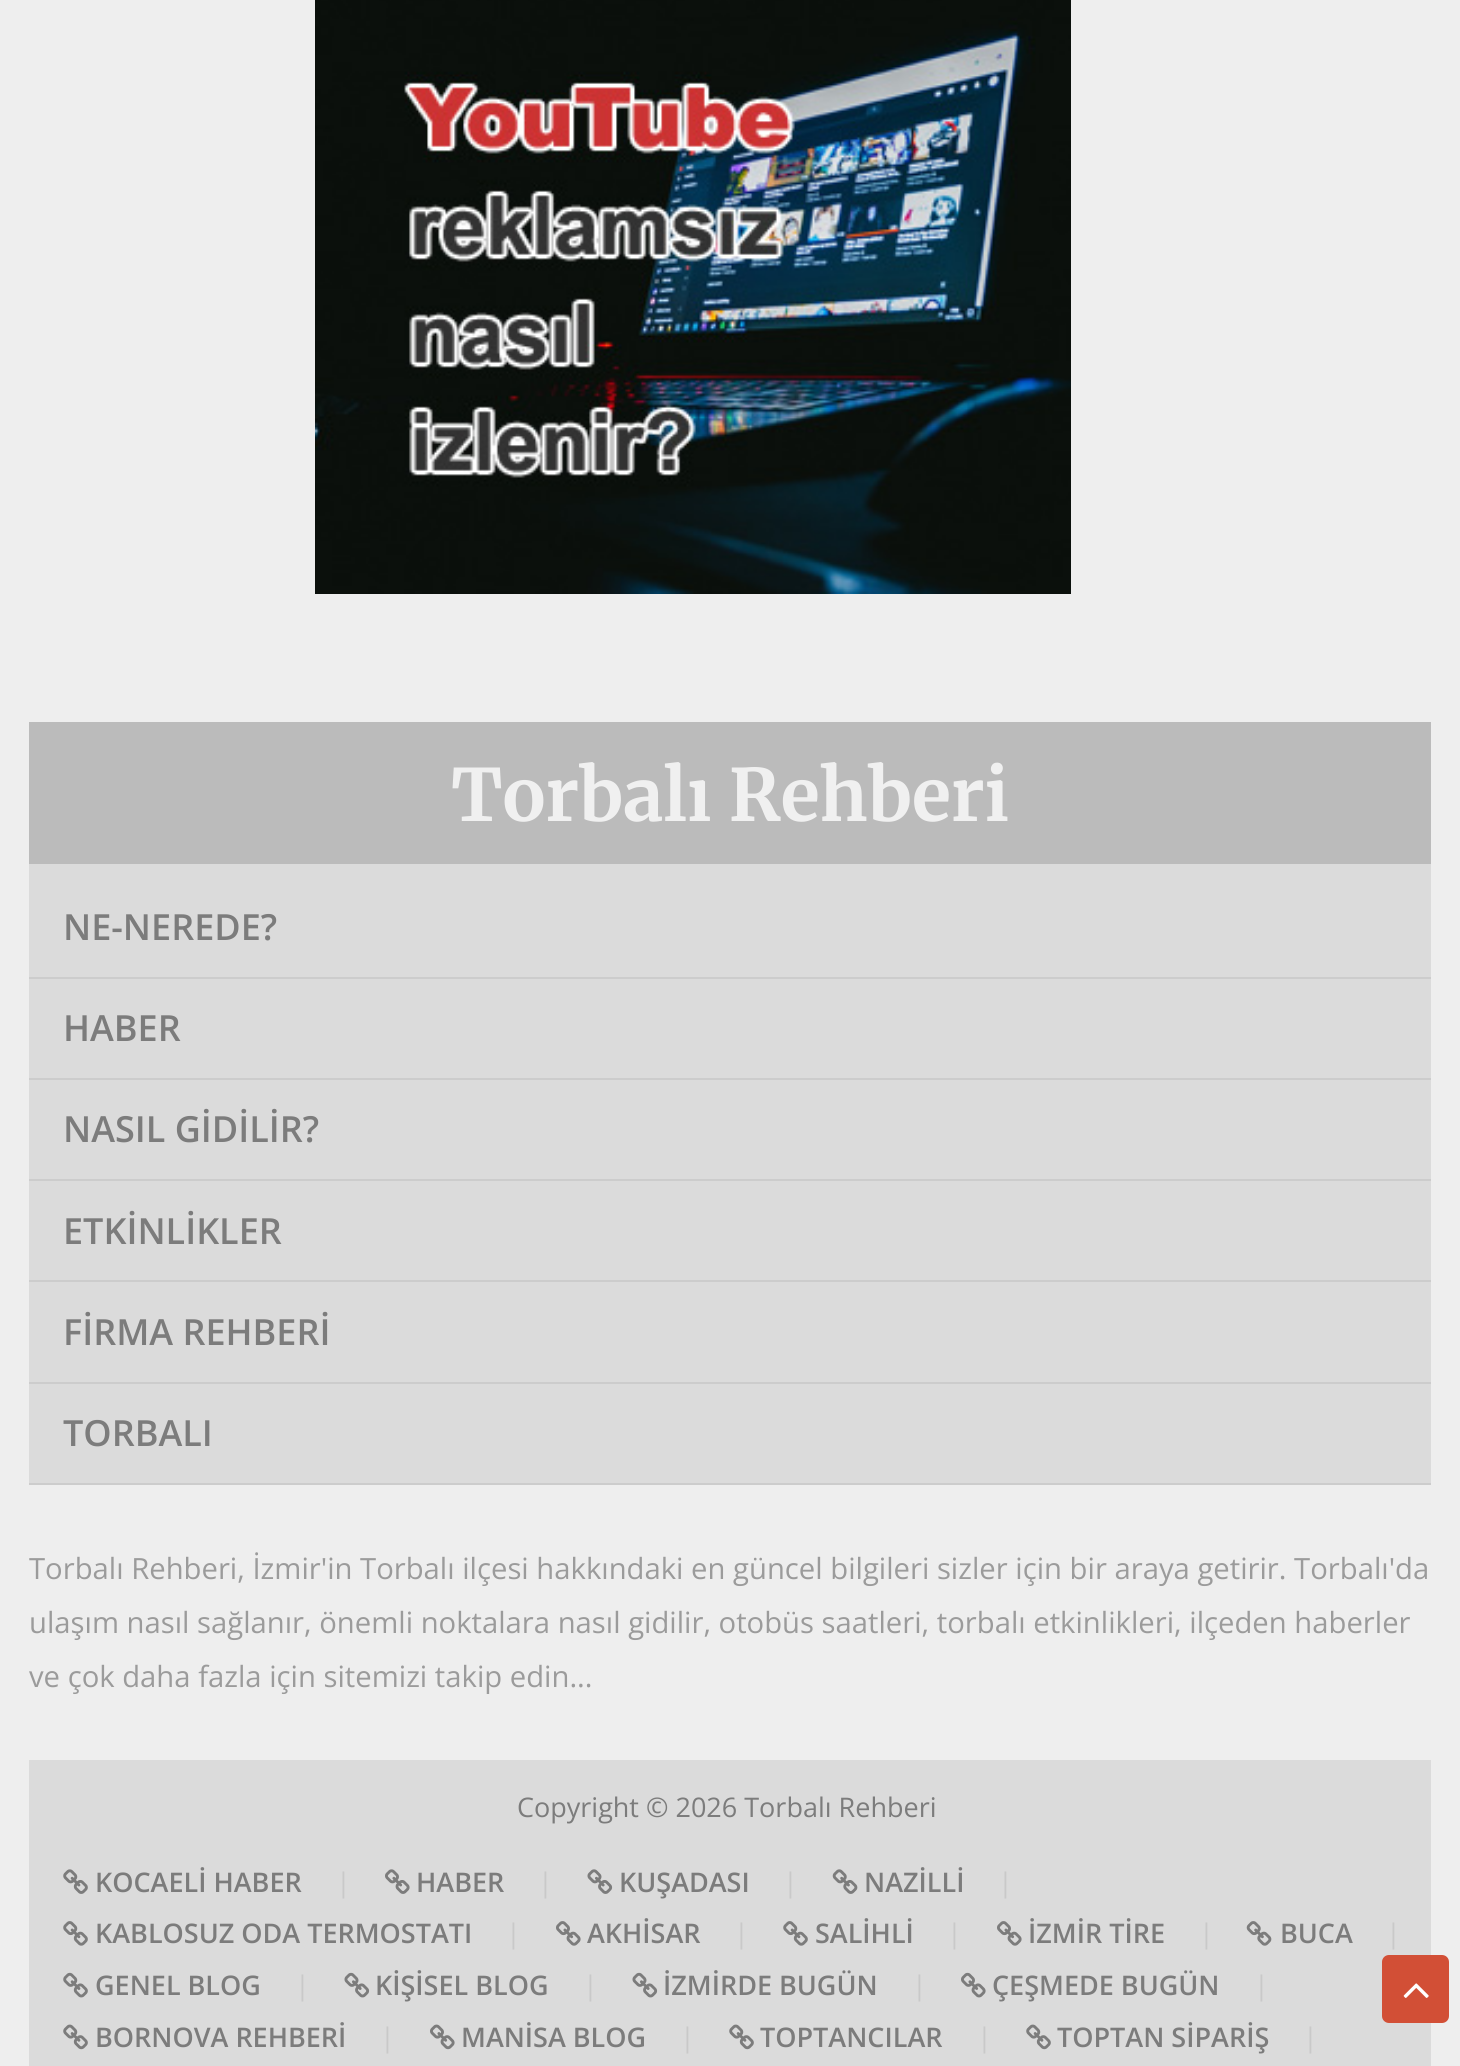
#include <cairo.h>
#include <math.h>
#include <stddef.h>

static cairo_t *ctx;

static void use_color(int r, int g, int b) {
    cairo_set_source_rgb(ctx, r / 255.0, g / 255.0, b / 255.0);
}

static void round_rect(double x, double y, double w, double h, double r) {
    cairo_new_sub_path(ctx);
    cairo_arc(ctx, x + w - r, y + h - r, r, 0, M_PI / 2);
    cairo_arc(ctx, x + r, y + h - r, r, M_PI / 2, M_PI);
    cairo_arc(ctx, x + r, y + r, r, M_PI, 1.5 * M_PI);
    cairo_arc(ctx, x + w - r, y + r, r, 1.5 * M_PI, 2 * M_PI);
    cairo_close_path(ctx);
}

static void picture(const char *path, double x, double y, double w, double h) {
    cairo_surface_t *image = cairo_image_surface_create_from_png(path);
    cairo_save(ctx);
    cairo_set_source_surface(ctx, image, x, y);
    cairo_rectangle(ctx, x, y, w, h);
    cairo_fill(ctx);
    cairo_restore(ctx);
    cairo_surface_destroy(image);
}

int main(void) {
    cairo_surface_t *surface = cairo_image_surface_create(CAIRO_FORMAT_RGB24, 1460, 2066);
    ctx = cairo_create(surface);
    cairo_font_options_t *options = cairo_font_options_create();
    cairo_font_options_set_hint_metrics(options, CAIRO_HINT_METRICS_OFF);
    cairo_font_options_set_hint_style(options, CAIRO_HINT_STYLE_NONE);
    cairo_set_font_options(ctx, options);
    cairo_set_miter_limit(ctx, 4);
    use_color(238, 238, 238);
    cairo_paint(ctx);
    picture("img1.png", 315, 0, 756, 594);
    use_color(219, 219, 219);
    cairo_rectangle(ctx, 29, 864, 1402, 619);
    cairo_fill(ctx);
    use_color(187, 187, 187);
    cairo_rectangle(ctx, 29, 722, 1402, 142);
    cairo_fill(ctx);
    cairo_select_font_face(ctx, "Merriweather Light", CAIRO_FONT_SLANT_NORMAL, CAIRO_FONT_WEIGHT_NORMAL);
    cairo_set_font_size(ctx, 72);
    use_color(240, 240, 240);
    cairo_move_to(ctx, 451, 821);
    cairo_show_text(ctx, "Torbalı Rehberi");
    use_color(204, 204, 204);
    cairo_rectangle(ctx, 29, 977, 1402, 2);
    cairo_fill(ctx);
    cairo_select_font_face(ctx, "Open Sans SemiBold", CAIRO_FONT_SLANT_NORMAL, CAIRO_FONT_WEIGHT_NORMAL);
    cairo_set_font_size(ctx, 36);
    use_color(124, 124, 124);
    cairo_move_to(ctx, 63, 940);
    cairo_show_text(ctx, "NE-NEREDE?");
    use_color(204, 204, 204);
    cairo_rectangle(ctx, 29, 1078, 1402, 2);
    cairo_fill(ctx);
    use_color(124, 124, 124);
    cairo_move_to(ctx, 63, 1041);
    cairo_show_text(ctx, "HABER");
    use_color(204, 204, 204);
    cairo_rectangle(ctx, 29, 1179, 1402, 2);
    cairo_fill(ctx);
    use_color(124, 124, 124);
    cairo_move_to(ctx, 63, 1142);
    cairo_show_text(ctx, "NASIL GİDİLİR?");
    use_color(204, 204, 204);
    cairo_rectangle(ctx, 29, 1280, 1402, 2);
    cairo_fill(ctx);
    use_color(124, 124, 124);
    cairo_move_to(ctx, 63, 1244);
    cairo_show_text(ctx, "ETKİNLİKLER");
    use_color(204, 204, 204);
    cairo_rectangle(ctx, 29, 1382, 1402, 2);
    cairo_fill(ctx);
    use_color(124, 124, 124);
    cairo_move_to(ctx, 63, 1345);
    cairo_show_text(ctx, "FİRMA REHBERİ");
    use_color(204, 204, 204);
    cairo_rectangle(ctx, 29, 1483, 1402, 2);
    cairo_fill(ctx);
    use_color(124, 124, 124);
    cairo_move_to(ctx, 63, 1446);
    cairo_show_text(ctx, "TORBALI");
    cairo_select_font_face(ctx, "Open Sans", CAIRO_FONT_SLANT_NORMAL, CAIRO_FONT_WEIGHT_NORMAL);
    cairo_set_font_size(ctx, 29.25);
    use_color(155, 155, 155);
    cairo_move_to(ctx, 29, 1579);
    cairo_show_text(ctx, "Torbalı Rehberi, İzmir'in Torbalı ilçesi hakkındaki en güncel bilgileri sizler için bir araya getirir. Torbalı'da");
    cairo_move_to(ctx, 29, 1633);
    cairo_show_text(ctx, "ulaşım nasıl sağlanır, önemli noktalara nasıl gidilir, otobüs saatleri, torbalı etkinlikleri, ilçeden haberler");
    cairo_move_to(ctx, 29, 1687);
    cairo_show_text(ctx, "ve çok daha fazla için sitemizi takip edin...");
    use_color(219, 219, 219);
    cairo_rectangle(ctx, 29, 1760, 1402, 306);
    cairo_fill(ctx);
    cairo_set_font_size(ctx, 27);
    use_color(124, 124, 124);
    cairo_move_to(ctx, 517, 1817);
    cairo_show_text(ctx, "Copyright © 2026 Torbalı Rehberi");
    picture("img2.png", 63, 1869, 25, 25);
    cairo_select_font_face(ctx, "Open Sans SemiBold", CAIRO_FONT_SLANT_NORMAL, CAIRO_FONT_WEIGHT_NORMAL);
    cairo_move_to(ctx, 95, 1892);
    cairo_show_text(ctx, "KOCAELİ HABER");
    cairo_select_font_face(ctx, "Open Sans", CAIRO_FONT_SLANT_NORMAL, CAIRO_FONT_WEIGHT_NORMAL);
    use_color(201, 201, 201);
    cairo_move_to(ctx, 336, 1892);
    cairo_show_text(ctx, "|");
    picture("img3.png", 385, 1869, 25, 25);
    cairo_select_font_face(ctx, "Open Sans SemiBold", CAIRO_FONT_SLANT_NORMAL, CAIRO_FONT_WEIGHT_NORMAL);
    use_color(124, 124, 124);
    cairo_move_to(ctx, 416, 1892);
    cairo_show_text(ctx, "HABER");
    cairo_select_font_face(ctx, "Open Sans", CAIRO_FONT_SLANT_NORMAL, CAIRO_FONT_WEIGHT_NORMAL);
    use_color(201, 201, 201);
    cairo_move_to(ctx, 538, 1892);
    cairo_show_text(ctx, "|");
    picture("img4.png", 587, 1869, 26, 25);
    cairo_select_font_face(ctx, "Open Sans SemiBold", CAIRO_FONT_SLANT_NORMAL, CAIRO_FONT_WEIGHT_NORMAL);
    use_color(124, 124, 124);
    cairo_move_to(ctx, 619, 1892);
    cairo_show_text(ctx, "KUŞADASI");
    cairo_select_font_face(ctx, "Open Sans", CAIRO_FONT_SLANT_NORMAL, CAIRO_FONT_WEIGHT_NORMAL);
    use_color(201, 201, 201);
    cairo_move_to(ctx, 783, 1892);
    cairo_show_text(ctx, "|");
    picture("img5.png", 832, 1869, 26, 25);
    cairo_select_font_face(ctx, "Open Sans SemiBold", CAIRO_FONT_SLANT_NORMAL, CAIRO_FONT_WEIGHT_NORMAL);
    use_color(124, 124, 124);
    cairo_move_to(ctx, 864, 1892);
    cairo_show_text(ctx, "NAZİLLİ");
    cairo_select_font_face(ctx, "Open Sans", CAIRO_FONT_SLANT_NORMAL, CAIRO_FONT_WEIGHT_NORMAL);
    use_color(201, 201, 201);
    cairo_move_to(ctx, 998, 1892);
    cairo_show_text(ctx, "|");
    picture("img6.png", 63, 1921, 25, 25);
    cairo_select_font_face(ctx, "Open Sans SemiBold", CAIRO_FONT_SLANT_NORMAL, CAIRO_FONT_WEIGHT_NORMAL);
    use_color(124, 124, 124);
    cairo_move_to(ctx, 95, 1943);
    cairo_show_text(ctx, "KABLOSUZ ODA TERMOSTATI");
    cairo_select_font_face(ctx, "Open Sans", CAIRO_FONT_SLANT_NORMAL, CAIRO_FONT_WEIGHT_NORMAL);
    use_color(201, 201, 201);
    cairo_move_to(ctx, 506, 1943);
    cairo_show_text(ctx, "|");
    picture("img7.png", 556, 1921, 25, 25);
    cairo_select_font_face(ctx, "Open Sans SemiBold", CAIRO_FONT_SLANT_NORMAL, CAIRO_FONT_WEIGHT_NORMAL);
    use_color(124, 124, 124);
    cairo_move_to(ctx, 587, 1943);
    cairo_show_text(ctx, "AKHİSAR");
    cairo_select_font_face(ctx, "Open Sans", CAIRO_FONT_SLANT_NORMAL, CAIRO_FONT_WEIGHT_NORMAL);
    use_color(201, 201, 201);
    cairo_move_to(ctx, 734, 1943);
    cairo_show_text(ctx, "|");
    picture("img6.png", 783, 1921, 25, 25);
    cairo_select_font_face(ctx, "Open Sans SemiBold", CAIRO_FONT_SLANT_NORMAL, CAIRO_FONT_WEIGHT_NORMAL);
    use_color(124, 124, 124);
    cairo_move_to(ctx, 815, 1943);
    cairo_show_text(ctx, "SALİHLİ");
    cairo_select_font_face(ctx, "Open Sans", CAIRO_FONT_SLANT_NORMAL, CAIRO_FONT_WEIGHT_NORMAL);
    use_color(201, 201, 201);
    cairo_move_to(ctx, 947, 1943);
    cairo_show_text(ctx, "|");
    picture("img7.png", 997, 1921, 25, 25);
    cairo_select_font_face(ctx, "Open Sans SemiBold", CAIRO_FONT_SLANT_NORMAL, CAIRO_FONT_WEIGHT_NORMAL);
    use_color(124, 124, 124);
    cairo_move_to(ctx, 1028, 1943);
    cairo_show_text(ctx, "İZMİR TİRE");
    cairo_select_font_face(ctx, "Open Sans", CAIRO_FONT_SLANT_NORMAL, CAIRO_FONT_WEIGHT_NORMAL);
    use_color(201, 201, 201);
    cairo_move_to(ctx, 1199, 1943);
    cairo_show_text(ctx, "|");
    picture("img8.png", 1246, 1921, 26, 25);
    cairo_select_font_face(ctx, "Open Sans SemiBold", CAIRO_FONT_SLANT_NORMAL, CAIRO_FONT_WEIGHT_NORMAL);
    use_color(124, 124, 124);
    cairo_move_to(ctx, 1280, 1943);
    cairo_show_text(ctx, "BUCA");
    cairo_select_font_face(ctx, "Open Sans", CAIRO_FONT_SLANT_NORMAL, CAIRO_FONT_WEIGHT_NORMAL);
    use_color(201, 201, 201);
    cairo_move_to(ctx, 1386, 1943);
    cairo_show_text(ctx, "|");
    picture("img9.png", 63, 1972, 25, 26);
    cairo_select_font_face(ctx, "Open Sans SemiBold", CAIRO_FONT_SLANT_NORMAL, CAIRO_FONT_WEIGHT_NORMAL);
    use_color(124, 124, 124);
    cairo_move_to(ctx, 95, 1995);
    cairo_show_text(ctx, "GENEL BLOG");
    cairo_select_font_face(ctx, "Open Sans", CAIRO_FONT_SLANT_NORMAL, CAIRO_FONT_WEIGHT_NORMAL);
    use_color(201, 201, 201);
    cairo_move_to(ctx, 295, 1995);
    cairo_show_text(ctx, "|");
    picture("img10.png", 344, 1972, 26, 26);
    cairo_select_font_face(ctx, "Open Sans SemiBold", CAIRO_FONT_SLANT_NORMAL, CAIRO_FONT_WEIGHT_NORMAL);
    use_color(124, 124, 124);
    cairo_move_to(ctx, 375, 1995);
    cairo_show_text(ctx, "KİŞİSEL BLOG");
    cairo_select_font_face(ctx, "Open Sans", CAIRO_FONT_SLANT_NORMAL, CAIRO_FONT_WEIGHT_NORMAL);
    use_color(201, 201, 201);
    cairo_move_to(ctx, 583, 1995);
    cairo_show_text(ctx, "|");
    picture("img10.png", 632, 1972, 26, 26);
    cairo_select_font_face(ctx, "Open Sans SemiBold", CAIRO_FONT_SLANT_NORMAL, CAIRO_FONT_WEIGHT_NORMAL);
    use_color(124, 124, 124);
    cairo_move_to(ctx, 663, 1995);
    cairo_show_text(ctx, "İZMİRDE BUGÜN");
    cairo_select_font_face(ctx, "Open Sans", CAIRO_FONT_SLANT_NORMAL, CAIRO_FONT_WEIGHT_NORMAL);
    use_color(201, 201, 201);
    cairo_move_to(ctx, 912, 1995);
    cairo_show_text(ctx, "|");
    picture("img11.png", 961, 1972, 25, 26);
    cairo_select_font_face(ctx, "Open Sans SemiBold", CAIRO_FONT_SLANT_NORMAL, CAIRO_FONT_WEIGHT_NORMAL);
    use_color(124, 124, 124);
    cairo_move_to(ctx, 992, 1995);
    cairo_show_text(ctx, "ÇEŞMEDE BUGÜN");
    cairo_select_font_face(ctx, "Open Sans", CAIRO_FONT_SLANT_NORMAL, CAIRO_FONT_WEIGHT_NORMAL);
    use_color(201, 201, 201);
    cairo_move_to(ctx, 1254, 1995);
    cairo_show_text(ctx, "|");
    picture("img12.png", 63, 2024, 25, 26);
    cairo_select_font_face(ctx, "Open Sans SemiBold", CAIRO_FONT_SLANT_NORMAL, CAIRO_FONT_WEIGHT_NORMAL);
    use_color(124, 124, 124);
    cairo_move_to(ctx, 95, 2047);
    cairo_show_text(ctx, "BORNOVA REHBERİ");
    cairo_select_font_face(ctx, "Open Sans", CAIRO_FONT_SLANT_NORMAL, CAIRO_FONT_WEIGHT_NORMAL);
    use_color(201, 201, 201);
    cairo_move_to(ctx, 380, 2047);
    cairo_show_text(ctx, "|");
    picture("img13.png", 430, 2024, 25, 26);
    cairo_select_font_face(ctx, "Open Sans SemiBold", CAIRO_FONT_SLANT_NORMAL, CAIRO_FONT_WEIGHT_NORMAL);
    use_color(124, 124, 124);
    cairo_move_to(ctx, 461, 2047);
    cairo_show_text(ctx, "MANİSA BLOG");
    cairo_select_font_face(ctx, "Open Sans", CAIRO_FONT_SLANT_NORMAL, CAIRO_FONT_WEIGHT_NORMAL);
    use_color(201, 201, 201);
    cairo_move_to(ctx, 680, 2047);
    cairo_show_text(ctx, "|");
    picture("img12.png", 729, 2024, 25, 26);
    cairo_select_font_face(ctx, "Open Sans SemiBold", CAIRO_FONT_SLANT_NORMAL, CAIRO_FONT_WEIGHT_NORMAL);
    use_color(124, 124, 124);
    cairo_move_to(ctx, 760, 2047);
    cairo_show_text(ctx, "TOPTANCILAR");
    cairo_select_font_face(ctx, "Open Sans", CAIRO_FONT_SLANT_NORMAL, CAIRO_FONT_WEIGHT_NORMAL);
    use_color(201, 201, 201);
    cairo_move_to(ctx, 977, 2047);
    cairo_show_text(ctx, "|");
    picture("img12.png", 1026, 2024, 25, 26);
    cairo_select_font_face(ctx, "Open Sans SemiBold", CAIRO_FONT_SLANT_NORMAL, CAIRO_FONT_WEIGHT_NORMAL);
    use_color(124, 124, 124);
    cairo_move_to(ctx, 1057, 2047);
    cairo_show_text(ctx, "TOPTAN SİPARİŞ");
    cairo_select_font_face(ctx, "Open Sans", CAIRO_FONT_SLANT_NORMAL, CAIRO_FONT_WEIGHT_NORMAL);
    use_color(201, 201, 201);
    cairo_move_to(ctx, 1303, 2047);
    cairo_show_text(ctx, "|");
    use_color(210, 79, 54);
    round_rect(1382, 1955, 67, 68, 7);
    cairo_fill(ctx);
    picture("img14.png", 1403, 1983, 26, 15);
    cairo_surface_write_to_png(surface, "result.png");
    cairo_font_options_destroy(options);
    cairo_destroy(ctx);
    cairo_surface_destroy(surface);
    return 0;
}
